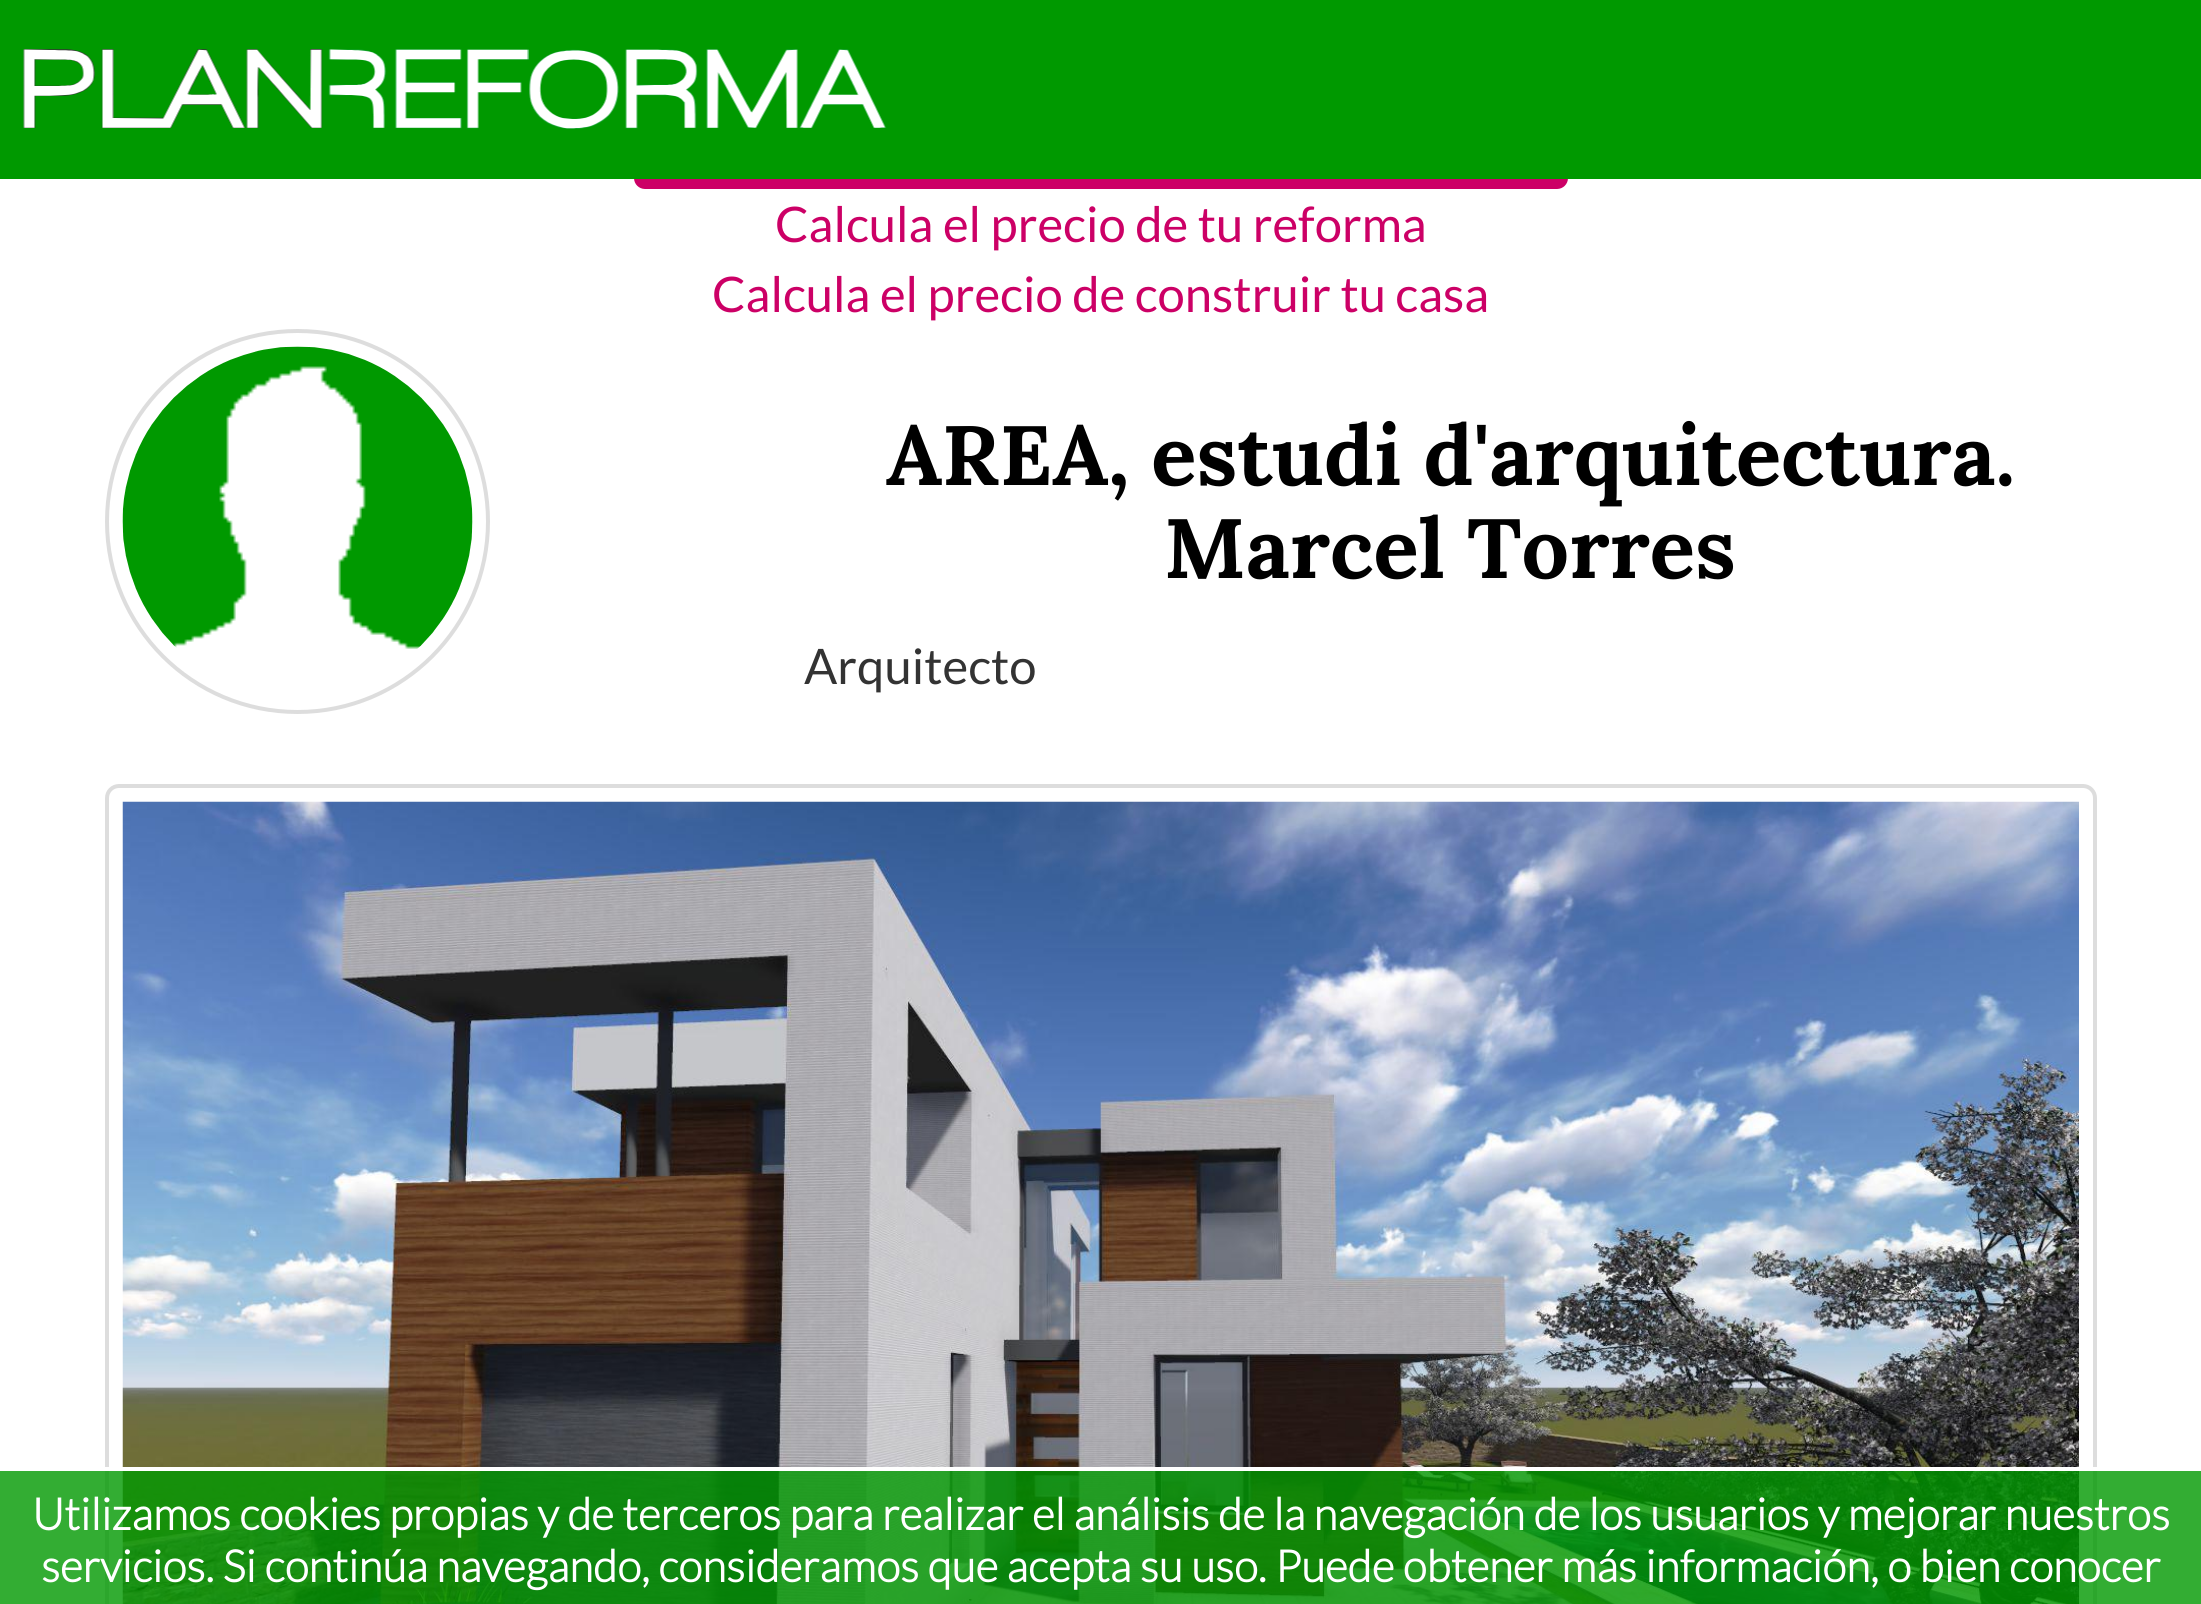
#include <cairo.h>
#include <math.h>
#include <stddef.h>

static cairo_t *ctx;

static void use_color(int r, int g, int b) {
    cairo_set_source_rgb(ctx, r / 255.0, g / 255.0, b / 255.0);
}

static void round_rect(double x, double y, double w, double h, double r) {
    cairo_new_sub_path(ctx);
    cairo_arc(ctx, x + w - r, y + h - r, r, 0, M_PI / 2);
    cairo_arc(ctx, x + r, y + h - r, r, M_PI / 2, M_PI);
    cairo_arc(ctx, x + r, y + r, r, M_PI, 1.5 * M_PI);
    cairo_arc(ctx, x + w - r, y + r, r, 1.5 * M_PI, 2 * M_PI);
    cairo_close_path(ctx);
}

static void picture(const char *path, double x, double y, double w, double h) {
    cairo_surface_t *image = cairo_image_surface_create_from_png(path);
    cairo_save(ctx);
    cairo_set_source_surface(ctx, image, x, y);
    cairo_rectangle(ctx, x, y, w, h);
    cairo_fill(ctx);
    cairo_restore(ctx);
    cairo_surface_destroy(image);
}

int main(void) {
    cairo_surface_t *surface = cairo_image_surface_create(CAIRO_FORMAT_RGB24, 2201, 1604);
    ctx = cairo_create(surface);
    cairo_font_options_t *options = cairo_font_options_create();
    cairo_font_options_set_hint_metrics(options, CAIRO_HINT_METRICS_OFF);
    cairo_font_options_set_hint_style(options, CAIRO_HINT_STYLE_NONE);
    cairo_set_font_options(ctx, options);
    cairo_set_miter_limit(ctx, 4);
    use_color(255, 255, 255);
    cairo_paint(ctx);
    use_color(204, 0, 102);
    round_rect(636, 72, 930, 115, 9);
    cairo_fill_preserve(ctx);
    cairo_set_line_width(ctx, 4);
    cairo_stroke(ctx);
    use_color(0, 153, 0);
    cairo_rectangle(ctx, 0, 0, 2201, 179);
    cairo_fill(ctx);
    picture("img1.png", 23, 49, 864, 80);
    cairo_select_font_face(ctx, "Lato", CAIRO_FONT_SLANT_NORMAL, CAIRO_FONT_WEIGHT_NORMAL);
    cairo_set_font_size(ctx, 49);
    use_color(204, 0, 102);
    cairo_move_to(ctx, 775, 242);
    cairo_show_text(ctx, "Calcula el precio de tu reforma");
    cairo_move_to(ctx, 712, 312);
    cairo_show_text(ctx, "Calcula el precio de construir tu casa");
    cairo_new_path(ctx);
    cairo_arc(ctx, 297.5, 521.5, 190.5, 0, 2 * M_PI);
    use_color(221, 221, 221);
    cairo_stroke(ctx);
    picture("img2.png", 122, 346, 351, 303);
    cairo_select_font_face(ctx, "Lora", CAIRO_FONT_SLANT_NORMAL, CAIRO_FONT_WEIGHT_BOLD);
    cairo_set_font_size(ctx, 84);
    use_color(0, 0, 0);
    cairo_move_to(ctx, 886, 485);
    cairo_show_text(ctx, "AREA, estudi d'arquitectura.");
    cairo_move_to(ctx, 1164, 578);
    cairo_show_text(ctx, "Marcel Torres");
    cairo_select_font_face(ctx, "Lato", CAIRO_FONT_SLANT_NORMAL, CAIRO_FONT_WEIGHT_NORMAL);
    cairo_set_font_size(ctx, 49);
    use_color(51, 51, 51);
    cairo_move_to(ctx, 804, 684);
    cairo_show_text(ctx, "Arquitecto");
    round_rect(107, 786, 1988, 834, 12);
    use_color(221, 221, 221);
    cairo_stroke(ctx);
    picture("img3.png", 122, 801, 1957, 803);
    cairo_set_source_rgba(ctx, 0, 0.6, 0, 0.8);
    cairo_rectangle(ctx, 0, 1471, 2201, 133);
    cairo_fill(ctx);
    use_color(255, 255, 255);
    cairo_rectangle(ctx, 105, 1467, 1992, 4);
    cairo_fill(ctx);
    cairo_select_font_face(ctx, "Lato", CAIRO_FONT_SLANT_NORMAL, CAIRO_FONT_WEIGHT_BOLD);
    cairo_set_font_size(ctx, 44.1);
    cairo_move_to(ctx, 32, 1530);
    cairo_show_text(ctx, "Utilizamos cookies propias y de terceros para realizar el análisis de la navegación de los usuarios y mejorar nuestros");
    cairo_move_to(ctx, 41, 1582);
    cairo_show_text(ctx, "servicios. Si continúa navegando, consideramos que acepta su uso. Puede obtener más información, o bien conocer");
    cairo_surface_write_to_png(surface, "result.png");
    cairo_font_options_destroy(options);
    cairo_destroy(ctx);
    cairo_surface_destroy(surface);
    return 0;
}
